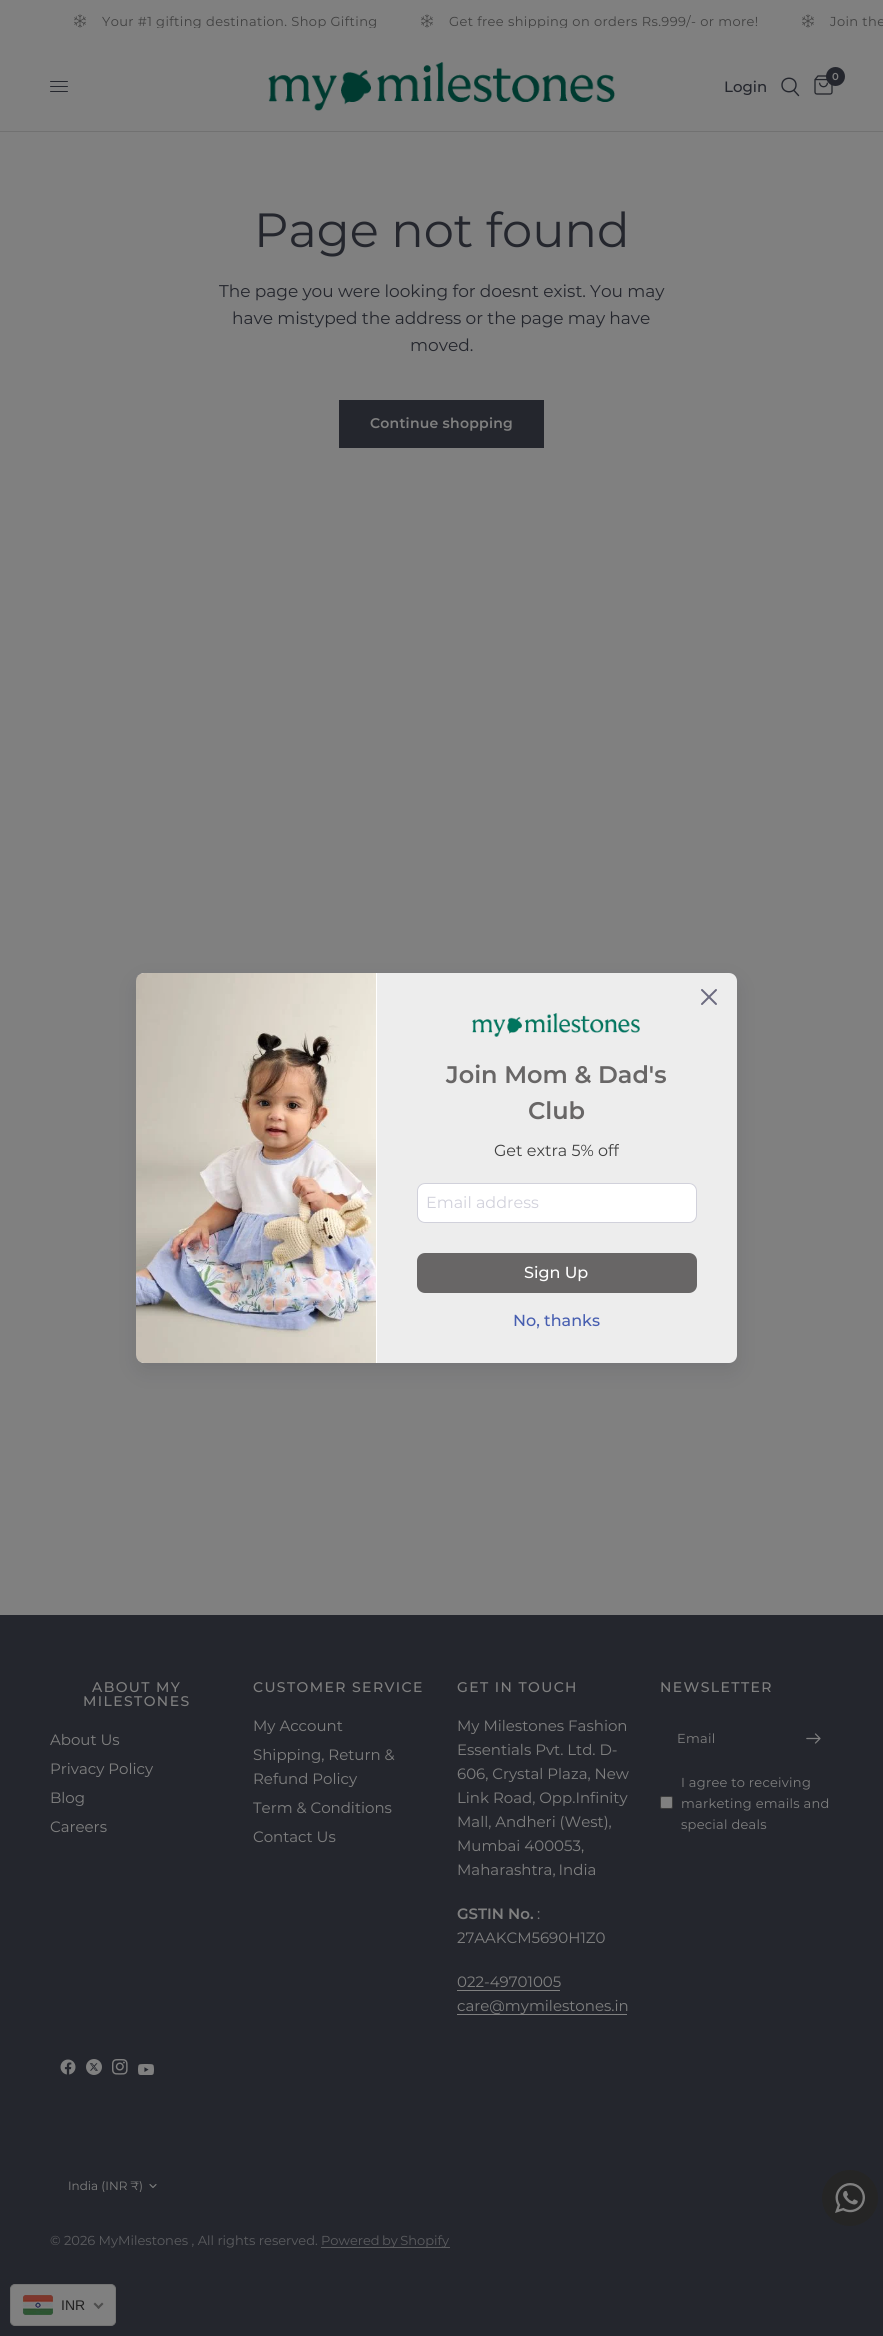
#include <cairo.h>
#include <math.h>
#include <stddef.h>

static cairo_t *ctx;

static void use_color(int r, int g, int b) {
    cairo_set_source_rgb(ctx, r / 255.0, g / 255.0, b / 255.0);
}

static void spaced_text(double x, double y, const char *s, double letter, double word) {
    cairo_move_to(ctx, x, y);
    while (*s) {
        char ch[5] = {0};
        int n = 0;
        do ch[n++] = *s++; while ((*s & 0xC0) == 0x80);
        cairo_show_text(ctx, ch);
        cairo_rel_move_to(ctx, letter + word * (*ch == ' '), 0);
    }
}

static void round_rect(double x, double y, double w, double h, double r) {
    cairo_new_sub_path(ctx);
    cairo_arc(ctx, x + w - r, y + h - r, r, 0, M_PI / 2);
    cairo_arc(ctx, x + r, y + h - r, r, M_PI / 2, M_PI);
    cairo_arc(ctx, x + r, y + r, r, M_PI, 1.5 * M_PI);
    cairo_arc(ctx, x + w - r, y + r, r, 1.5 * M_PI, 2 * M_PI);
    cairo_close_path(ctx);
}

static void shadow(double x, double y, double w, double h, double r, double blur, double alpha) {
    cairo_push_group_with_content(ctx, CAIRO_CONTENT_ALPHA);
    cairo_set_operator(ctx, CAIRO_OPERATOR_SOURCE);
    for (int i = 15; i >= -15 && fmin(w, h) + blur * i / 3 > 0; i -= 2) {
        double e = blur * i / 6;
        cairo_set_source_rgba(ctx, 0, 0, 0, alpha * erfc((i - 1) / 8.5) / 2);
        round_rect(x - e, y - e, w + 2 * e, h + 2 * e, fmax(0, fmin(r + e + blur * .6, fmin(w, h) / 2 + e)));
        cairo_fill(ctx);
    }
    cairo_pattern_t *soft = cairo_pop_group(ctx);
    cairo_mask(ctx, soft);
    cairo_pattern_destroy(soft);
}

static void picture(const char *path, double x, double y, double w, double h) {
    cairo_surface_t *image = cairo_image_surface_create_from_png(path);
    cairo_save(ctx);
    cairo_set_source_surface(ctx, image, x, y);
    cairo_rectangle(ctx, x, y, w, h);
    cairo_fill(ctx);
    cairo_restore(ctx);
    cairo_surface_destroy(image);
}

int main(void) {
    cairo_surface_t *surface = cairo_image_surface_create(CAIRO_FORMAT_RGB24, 883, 2336);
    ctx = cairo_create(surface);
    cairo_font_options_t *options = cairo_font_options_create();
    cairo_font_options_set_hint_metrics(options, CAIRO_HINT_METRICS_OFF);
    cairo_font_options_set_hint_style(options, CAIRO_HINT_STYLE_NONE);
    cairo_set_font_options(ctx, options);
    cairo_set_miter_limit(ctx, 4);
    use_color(128, 128, 128);
    cairo_paint(ctx);
    picture("img1.png", 74, 14, 12, 14);
    cairo_save(ctx);
    cairo_rectangle(ctx, 0, 14, 883, 14);
    cairo_clip(ctx);
    cairo_select_font_face(ctx, "Montserrat", CAIRO_FONT_SLANT_NORMAL, CAIRO_FONT_WEIGHT_NORMAL);
    cairo_set_font_size(ctx, 13);
    use_color(64, 64, 64);
    spaced_text(102, 26, "Your #1 gifting destination. Shop Gifting", 0.4, 0);
    cairo_restore(ctx);
    picture("img1.png", 421, 14, 12, 14);
    cairo_save(ctx);
    cairo_rectangle(ctx, 0, 14, 883, 14);
    cairo_clip(ctx);
    cairo_select_font_face(ctx, "Montserrat", CAIRO_FONT_SLANT_NORMAL, CAIRO_FONT_WEIGHT_NORMAL);
    cairo_set_font_size(ctx, 13);
    use_color(64, 64, 64);
    spaced_text(449, 26, "Get free shipping on orders Rs.999/- or more!", 0.4, 0);
    cairo_restore(ctx);
    picture("img1.png", 802, 14, 12, 14);
    cairo_select_font_face(ctx, "Montserrat", CAIRO_FONT_SLANT_NORMAL, CAIRO_FONT_WEIGHT_NORMAL);
    cairo_set_font_size(ctx, 13);
    use_color(64, 64, 64);
    spaced_text(830, 26, "Join the", 0.4, 0);
    use_color(113, 113, 113);
    cairo_rectangle(ctx, 0, 131, 883, 1);
    cairo_fill(ctx);
    use_color(36, 38, 45);
    round_rect(50, 81, 18, 1, 0.5);
    cairo_fill(ctx);
    round_rect(50, 86, 18, 1, 0.5);
    cairo_fill(ctx);
    round_rect(50, 91, 18, 1, 0.5);
    cairo_fill(ctx);
    picture("img2.png", 268, 62, 347, 49);
    cairo_select_font_face(ctx, "Montserrat Medium", CAIRO_FONT_SLANT_NORMAL, CAIRO_FONT_WEIGHT_NORMAL);
    cairo_set_font_size(ctx, 15);
    cairo_move_to(ctx, 724, 92);
    cairo_show_text(ctx, "Login");
    cairo_new_path(ctx);
    cairo_move_to(ctx, 794, 90.5);
    cairo_line_to(ctx, 798.5, 95.5);
    cairo_move_to(ctx, 796, 85);
    cairo_curve_to(ctx, 796, 94, 782, 94, 782, 85);
    cairo_curve_to(ctx, 782, 76, 796, 76, 796, 85);
    cairo_close_path(ctx);
    cairo_set_line_width(ctx, 1.4);
    cairo_set_line_cap(ctx, CAIRO_LINE_CAP_ROUND);
    cairo_set_line_join(ctx, CAIRO_LINE_JOIN_ROUND);
    cairo_stroke(ctx);
    picture("img3.png", 814, 75, 19, 20);
    cairo_arc(ctx, 835.5, 76.5, 9.5, 0, 2 * M_PI);
    cairo_fill(ctx);
    cairo_select_font_face(ctx, "Montserrat SemiBold", CAIRO_FONT_SLANT_NORMAL, CAIRO_FONT_WEIGHT_NORMAL);
    cairo_set_font_size(ctx, 10);
    use_color(128, 128, 128);
    cairo_move_to(ctx, 832, 80);
    cairo_show_text(ctx, "0");
    cairo_select_font_face(ctx, "Montserrat", CAIRO_FONT_SLANT_NORMAL, CAIRO_FONT_WEIGHT_NORMAL);
    cairo_set_font_size(ctx, 48);
    use_color(36, 38, 45);
    cairo_move_to(ctx, 254, 247);
    cairo_show_text(ctx, "Page not found");
    cairo_set_font_size(ctx, 17);
    spaced_text(219, 297, "The page you were looking for doesnt exist. You may", 0, -0.25);
    spaced_text(232, 324, "have mistyped the address or the page may have", 0, -0.25);
    cairo_move_to(ctx, 410, 351);
    cairo_show_text(ctx, "moved.");
    cairo_rectangle(ctx, 339, 400, 205, 48);
    cairo_fill(ctx);
    cairo_select_font_face(ctx, "Montserrat SemiBold", CAIRO_FONT_SLANT_NORMAL, CAIRO_FONT_WEIGHT_NORMAL);
    cairo_set_font_size(ctx, 14);
    use_color(128, 128, 128);
    spaced_text(370, 428, "Continue shopping", 0.25, 0);
    use_color(36, 38, 45);
    cairo_rectangle(ctx, 0, 1615, 883, 721);
    cairo_fill(ctx);
    cairo_select_font_face(ctx, "Montserrat Medium", CAIRO_FONT_SLANT_NORMAL, CAIRO_FONT_WEIGHT_NORMAL);
    use_color(128, 128, 128);
    spaced_text(92, 1692, "ABOUT MY", 1.4, 0);
    spaced_text(83, 1706, "MILESTONES", 1.4, 0);
    cairo_select_font_face(ctx, "Montserrat", CAIRO_FONT_SLANT_NORMAL, CAIRO_FONT_WEIGHT_NORMAL);
    cairo_set_font_size(ctx, 15);
    cairo_move_to(ctx, 50, 1745);
    cairo_show_text(ctx, "About Us");
    cairo_move_to(ctx, 50, 1774);
    cairo_show_text(ctx, "Privacy Policy");
    cairo_move_to(ctx, 50, 1803);
    cairo_show_text(ctx, "Blog");
    cairo_move_to(ctx, 50, 1832);
    cairo_show_text(ctx, "Careers");
    cairo_select_font_face(ctx, "Montserrat Medium", CAIRO_FONT_SLANT_NORMAL, CAIRO_FONT_WEIGHT_NORMAL);
    cairo_set_font_size(ctx, 14);
    spaced_text(253, 1692, "CUSTOMER SERVICE", 1.4, 0);
    cairo_select_font_face(ctx, "Montserrat", CAIRO_FONT_SLANT_NORMAL, CAIRO_FONT_WEIGHT_NORMAL);
    cairo_set_font_size(ctx, 15);
    cairo_move_to(ctx, 253, 1731);
    cairo_show_text(ctx, "My Account");
    cairo_move_to(ctx, 253, 1760);
    cairo_show_text(ctx, "Shipping, Return &");
    cairo_move_to(ctx, 253, 1784);
    cairo_show_text(ctx, "Refund Policy");
    cairo_move_to(ctx, 253, 1813);
    cairo_show_text(ctx, "Term & Conditions");
    cairo_move_to(ctx, 253, 1842);
    cairo_show_text(ctx, "Contact Us");
    cairo_select_font_face(ctx, "Montserrat Medium", CAIRO_FONT_SLANT_NORMAL, CAIRO_FONT_WEIGHT_NORMAL);
    cairo_set_font_size(ctx, 14);
    spaced_text(457, 1692, "GET IN TOUCH", 1.4, 0);
    cairo_select_font_face(ctx, "Montserrat", CAIRO_FONT_SLANT_NORMAL, CAIRO_FONT_WEIGHT_NORMAL);
    cairo_set_font_size(ctx, 15);
    cairo_move_to(ctx, 457, 1731);
    cairo_show_text(ctx, "My Milestones Fashion");
    cairo_move_to(ctx, 457, 1755);
    cairo_show_text(ctx, "Essentials Pvt. Ltd. D-");
    cairo_move_to(ctx, 457, 1779);
    cairo_show_text(ctx, "606, Crystal Plaza, New");
    cairo_move_to(ctx, 457, 1803);
    cairo_show_text(ctx, "Link Road, Opp.Infinity");
    cairo_move_to(ctx, 457, 1827);
    cairo_show_text(ctx, "Mall, Andheri (West),");
    cairo_move_to(ctx, 457, 1851);
    cairo_show_text(ctx, "Mumbai 400053,");
    spaced_text(457, 1875, "Maharashtra, India", 0, -1);
    cairo_select_font_face(ctx, "Montserrat SemiBold", CAIRO_FONT_SLANT_NORMAL, CAIRO_FONT_WEIGHT_NORMAL);
    cairo_move_to(ctx, 457, 1919);
    cairo_show_text(ctx, "GSTIN No.");
    cairo_select_font_face(ctx, "Montserrat", CAIRO_FONT_SLANT_NORMAL, CAIRO_FONT_WEIGHT_NORMAL);
    cairo_move_to(ctx, 537, 1919);
    cairo_show_text(ctx, ":");
    cairo_move_to(ctx, 457, 1943);
    cairo_show_text(ctx, "27AAKCM5690H1Z0");
    cairo_move_to(ctx, 457, 1987);
    cairo_show_text(ctx, "022-49701005");
    cairo_rectangle(ctx, 457, 1990, 103, 1);
    cairo_fill(ctx);
    cairo_move_to(ctx, 457, 2011);
    cairo_show_text(ctx, "care@mymilestones.in");
    cairo_rectangle(ctx, 457, 2014, 170, 1);
    cairo_fill(ctx);
    cairo_select_font_face(ctx, "Montserrat Medium", CAIRO_FONT_SLANT_NORMAL, CAIRO_FONT_WEIGHT_NORMAL);
    cairo_set_font_size(ctx, 14);
    spaced_text(660, 1692, "NEWSLETTER", 1.4, 0);
    cairo_select_font_face(ctx, "Montserrat", CAIRO_FONT_SLANT_NORMAL, CAIRO_FONT_WEIGHT_NORMAL);
    cairo_set_font_size(ctx, 13);
    spaced_text(677, 1743, "Email", 0.25, 0);
    picture("img4.png", 806, 1733, 15, 11);
    round_rect(660.5, 1796.5, 12, 12, 1.5);
    cairo_fill_preserve(ctx);
    use_color(59, 59, 59);
    cairo_set_line_width(ctx, 1);
    cairo_set_line_cap(ctx, CAIRO_LINE_CAP_BUTT);
    cairo_set_line_join(ctx, CAIRO_LINE_JOIN_MITER);
    cairo_stroke(ctx);
    use_color(128, 128, 128);
    spaced_text(681, 1787, "I agree to receiving", 0.25, 0);
    spaced_text(681, 1808, "marketing emails and", 0.25, 0);
    spaced_text(681, 1829, "special deals", 0.25, 0);
    picture("img5.png", 60, 2059, 16, 16);
    picture("img6.png", 86, 2059, 16, 16);
    picture("img7.png", 112, 2059, 16, 16);
    picture("img8.png", 138, 2064, 16, 11);
    cairo_save(ctx);
    cairo_rectangle(ctx, 68, 2180, 76, 12);
    cairo_clip(ctx);
    cairo_set_font_size(ctx, 12);
    cairo_move_to(ctx, 68, 2190);
    cairo_show_text(ctx, "India (INR ₹)");
    cairo_restore(ctx);
    cairo_new_path(ctx);
    cairo_move_to(ctx, 156, 2184.5);
    cairo_line_to(ctx, 153, 2187.5);
    cairo_line_to(ctx, 150, 2184.5);
    cairo_set_line_width(ctx, 1.1);
    cairo_set_line_cap(ctx, CAIRO_LINE_CAP_ROUND);
    cairo_set_line_join(ctx, CAIRO_LINE_JOIN_ROUND);
    cairo_stroke(ctx);
    use_color(91, 92, 95);
    cairo_move_to(ctx, 50, 2245);
    cairo_show_text(ctx, "© 2026 MyMilestones , All rights reserved.");
    cairo_rectangle(ctx, 321, 2247, 129, 1);
    cairo_fill(ctx);
    spaced_text(321, 2245, "Powered by Shopify", 0, -1);
    use_color(18, 17, 39);
    shadow(137, 981, 600, 390, 8, 10, 0.1);
    use_color(237, 237, 237);
    round_rect(137, 973, 600, 390, 8);
    cairo_fill(ctx);
    use_color(255, 255, 255);
    cairo_new_path(ctx);
    cairo_move_to(ctx, 145, 973);
    cairo_line_to(ctx, 377, 973);
    cairo_line_to(ctx, 377, 1363);
    cairo_line_to(ctx, 145, 1363);
    cairo_curve_to(ctx, 140.5, 1363, 137, 1359.5, 137, 1355);
    cairo_line_to(ctx, 137, 981);
    cairo_curve_to(ctx, 137, 976.5, 140.5, 973, 145, 973);
    cairo_close_path(ctx);
    cairo_fill(ctx);
    picture("img9.png", 136, 973, 240, 390);
    picture("img10.png", 701, 989, 16, 16);
    picture("img11.png", 472, 1013, 168, 24);
    cairo_select_font_face(ctx, "Montserrat SemiBold", CAIRO_FONT_SLANT_NORMAL, CAIRO_FONT_WEIGHT_NORMAL);
    cairo_set_font_size(ctx, 24);
    use_color(104, 102, 102);
    cairo_move_to(ctx, 446, 1083);
    cairo_show_text(ctx, "Join Mom & Dad's");
    cairo_move_to(ctx, 528, 1119);
    cairo_show_text(ctx, "Club");
    cairo_select_font_face(ctx, "Montserrat", CAIRO_FONT_SLANT_NORMAL, CAIRO_FONT_WEIGHT_NORMAL);
    cairo_set_font_size(ctx, 16);
    use_color(64, 64, 64);
    cairo_move_to(ctx, 494, 1156);
    cairo_show_text(ctx, "Get extra 5% off");
    use_color(255, 255, 255);
    round_rect(417.5, 1183.5, 279, 39, 7.5);
    cairo_fill_preserve(ctx);
    use_color(209, 209, 219);
    cairo_set_line_width(ctx, 1);
    cairo_set_line_cap(ctx, CAIRO_LINE_CAP_BUTT);
    cairo_set_line_join(ctx, CAIRO_LINE_JOIN_MITER);
    cairo_stroke(ctx);
    cairo_move_to(ctx, 426, 1208);
    cairo_show_text(ctx, "Email address");
    use_color(104, 102, 102);
    round_rect(417, 1253, 280, 40, 8);
    cairo_fill(ctx);
    cairo_select_font_face(ctx, "Montserrat Medium", CAIRO_FONT_SLANT_NORMAL, CAIRO_FONT_WEIGHT_NORMAL);
    use_color(255, 255, 255);
    cairo_move_to(ctx, 524, 1278);
    cairo_show_text(ctx, "Sign Up");
    use_color(71, 94, 176);
    cairo_move_to(ctx, 513, 1326);
    cairo_show_text(ctx, "No, thanks");
    use_color(37, 37, 37);
    cairo_new_path(ctx);
    cairo_arc(ctx, 850, 2198, 28, 0, 2 * M_PI);
    cairo_fill(ctx);
    picture("img12.png", 835, 2183, 30, 30);
    use_color(128, 128, 128);
    round_rect(10.5, 2284.5, 105, 41, 4.5);
    cairo_fill_preserve(ctx);
    use_color(116, 116, 116);
    cairo_stroke(ctx);
    picture("img13.png", 23, 2295, 30, 20);
    cairo_select_font_face(ctx, "Liberation Sans", CAIRO_FONT_SLANT_NORMAL, CAIRO_FONT_WEIGHT_NORMAL);
    cairo_set_font_size(ctx, 14);
    use_color(32, 32, 32);
    cairo_move_to(ctx, 61, 2310);
    cairo_show_text(ctx, "INR");
    use_color(77, 77, 77);
    cairo_new_path(ctx);
    cairo_move_to(ctx, 102, 2302.5);
    cairo_line_to(ctx, 103.5, 2304);
    cairo_line_to(ctx, 98.5, 2309);
    cairo_line_to(ctx, 97, 2307.5);
    cairo_close_path(ctx);
    cairo_fill(ctx);
    cairo_new_path(ctx);
    cairo_move_to(ctx, 95, 2302.5);
    cairo_line_to(ctx, 100, 2307.5);
    cairo_line_to(ctx, 98.5, 2309);
    cairo_line_to(ctx, 93.5, 2304);
    cairo_close_path(ctx);
    cairo_fill(ctx);
    cairo_surface_write_to_png(surface, "result.png");
    cairo_font_options_destroy(options);
    cairo_destroy(ctx);
    cairo_surface_destroy(surface);
    return 0;
}
